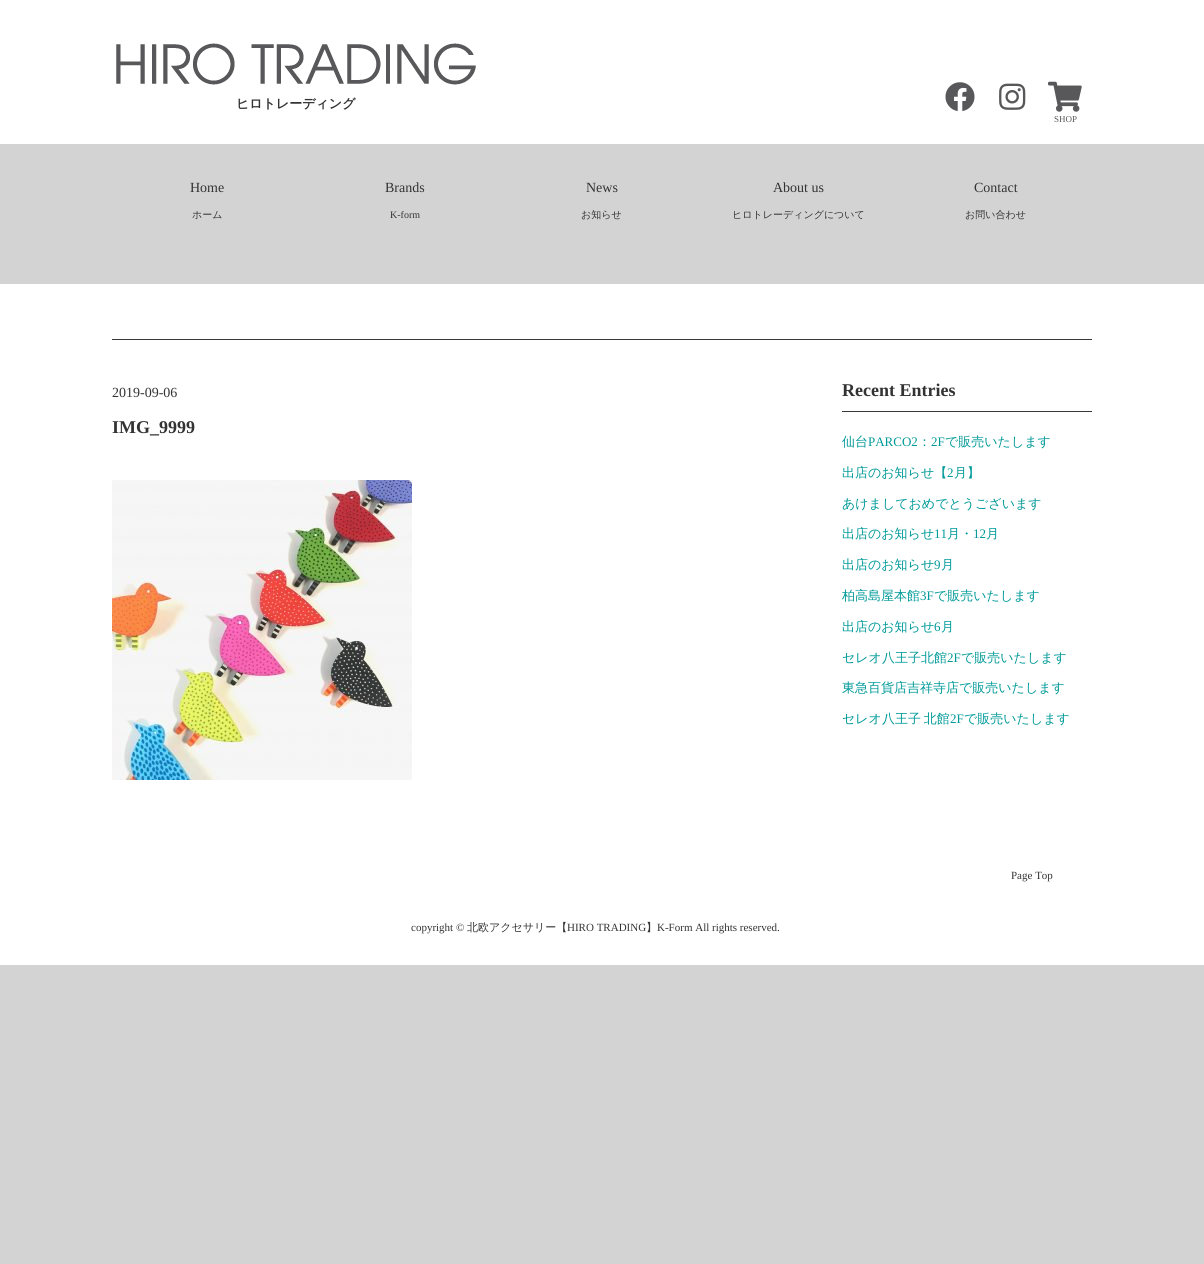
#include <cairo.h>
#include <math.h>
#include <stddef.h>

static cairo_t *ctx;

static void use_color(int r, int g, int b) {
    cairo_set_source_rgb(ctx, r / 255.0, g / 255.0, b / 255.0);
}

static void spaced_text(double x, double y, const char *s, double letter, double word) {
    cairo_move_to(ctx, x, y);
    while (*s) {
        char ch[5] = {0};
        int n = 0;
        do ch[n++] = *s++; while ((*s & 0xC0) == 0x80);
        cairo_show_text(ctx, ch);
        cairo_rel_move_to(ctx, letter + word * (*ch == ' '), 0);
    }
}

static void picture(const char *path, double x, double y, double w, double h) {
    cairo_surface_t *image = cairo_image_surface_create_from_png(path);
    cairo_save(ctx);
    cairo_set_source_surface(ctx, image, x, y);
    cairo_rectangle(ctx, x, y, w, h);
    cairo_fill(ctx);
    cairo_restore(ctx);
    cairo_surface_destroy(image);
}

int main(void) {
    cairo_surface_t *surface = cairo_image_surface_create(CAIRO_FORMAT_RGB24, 1204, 1264);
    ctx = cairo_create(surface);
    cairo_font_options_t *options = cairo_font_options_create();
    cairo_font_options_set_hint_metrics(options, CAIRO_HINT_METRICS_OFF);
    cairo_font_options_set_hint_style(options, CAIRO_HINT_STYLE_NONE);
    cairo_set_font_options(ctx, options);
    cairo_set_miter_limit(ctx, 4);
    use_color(211, 211, 211);
    cairo_paint(ctx);
    use_color(255, 255, 255);
    cairo_rectangle(ctx, 0, 0, 1204, 965);
    cairo_fill(ctx);
    picture("img1.png", 116, 43, 360, 42);
    cairo_select_font_face(ctx, "WenQuanYi Zen Hei", CAIRO_FONT_SLANT_NORMAL, CAIRO_FONT_WEIGHT_BOLD);
    cairo_set_font_size(ctx, 13);
    use_color(51, 51, 51);
    cairo_move_to(ctx, 236, 108);
    cairo_show_text(ctx, "ヒロトレーディング");
    picture("img2.png", 945, 82, 30, 29);
    picture("img3.png", 999, 83, 27, 27);
    picture("img4.png", 1048, 81, 34, 31);
    cairo_select_font_face(ctx, "Liberation Serif", CAIRO_FONT_SLANT_NORMAL, CAIRO_FONT_WEIGHT_NORMAL);
    cairo_set_font_size(ctx, 9);
    use_color(88, 88, 90);
    cairo_move_to(ctx, 1054, 122);
    cairo_show_text(ctx, "SHOP");
    use_color(211, 211, 211);
    cairo_rectangle(ctx, 0, 144, 1204, 140);
    cairo_fill(ctx);
    cairo_set_font_size(ctx, 14);
    use_color(51, 51, 51);
    cairo_move_to(ctx, 190, 192);
    cairo_show_text(ctx, "Home");
    cairo_select_font_face(ctx, "WenQuanYi Zen Hei Medium", CAIRO_FONT_SLANT_NORMAL, CAIRO_FONT_WEIGHT_NORMAL);
    cairo_set_font_size(ctx, 10);
    cairo_move_to(ctx, 192, 218);
    cairo_show_text(ctx, "ホーム");
    cairo_select_font_face(ctx, "Liberation Serif", CAIRO_FONT_SLANT_NORMAL, CAIRO_FONT_WEIGHT_NORMAL);
    cairo_set_font_size(ctx, 14);
    cairo_move_to(ctx, 385, 192);
    cairo_show_text(ctx, "Brands");
    cairo_set_font_size(ctx, 10);
    cairo_move_to(ctx, 390, 218);
    cairo_show_text(ctx, "K-form");
    cairo_set_font_size(ctx, 14);
    cairo_move_to(ctx, 586, 192);
    cairo_show_text(ctx, "News");
    cairo_select_font_face(ctx, "WenQuanYi Zen Hei Medium", CAIRO_FONT_SLANT_NORMAL, CAIRO_FONT_WEIGHT_NORMAL);
    cairo_set_font_size(ctx, 10);
    cairo_move_to(ctx, 581, 218);
    cairo_show_text(ctx, "お知らせ");
    cairo_select_font_face(ctx, "Liberation Serif", CAIRO_FONT_SLANT_NORMAL, CAIRO_FONT_WEIGHT_NORMAL);
    cairo_set_font_size(ctx, 14);
    cairo_move_to(ctx, 773, 192);
    cairo_show_text(ctx, "About us");
    cairo_select_font_face(ctx, "WenQuanYi Zen Hei Medium", CAIRO_FONT_SLANT_NORMAL, CAIRO_FONT_WEIGHT_NORMAL);
    cairo_set_font_size(ctx, 10);
    cairo_move_to(ctx, 732, 218);
    cairo_show_text(ctx, "ヒロトレーディングについて");
    cairo_select_font_face(ctx, "Liberation Serif", CAIRO_FONT_SLANT_NORMAL, CAIRO_FONT_WEIGHT_NORMAL);
    cairo_set_font_size(ctx, 14);
    cairo_move_to(ctx, 974, 192);
    cairo_show_text(ctx, "Contact");
    cairo_select_font_face(ctx, "WenQuanYi Zen Hei Medium", CAIRO_FONT_SLANT_NORMAL, CAIRO_FONT_WEIGHT_NORMAL);
    cairo_set_font_size(ctx, 10);
    cairo_move_to(ctx, 965, 218);
    cairo_show_text(ctx, "お問い合わせ");
    use_color(56, 56, 56);
    cairo_rectangle(ctx, 112, 339, 980, 1);
    cairo_fill(ctx);
    cairo_select_font_face(ctx, "Liberation Serif", CAIRO_FONT_SLANT_NORMAL, CAIRO_FONT_WEIGHT_NORMAL);
    cairo_set_font_size(ctx, 14);
    use_color(51, 51, 51);
    cairo_move_to(ctx, 112, 397);
    cairo_show_text(ctx, "2019-09-06");
    cairo_select_font_face(ctx, "Liberation Serif", CAIRO_FONT_SLANT_NORMAL, CAIRO_FONT_WEIGHT_BOLD);
    cairo_set_font_size(ctx, 18);
    cairo_move_to(ctx, 112, 433);
    cairo_show_text(ctx, "IMG_9999");
    picture("img5.png", 112, 480, 300, 300);
    use_color(56, 56, 56);
    cairo_rectangle(ctx, 842, 411, 250, 1);
    cairo_fill(ctx);
    use_color(51, 51, 51);
    cairo_move_to(ctx, 842, 396);
    cairo_show_text(ctx, "Recent Entries");
    cairo_select_font_face(ctx, "WenQuanYi Zen Hei Medium", CAIRO_FONT_SLANT_NORMAL, CAIRO_FONT_WEIGHT_NORMAL);
    cairo_set_font_size(ctx, 13);
    use_color(0, 153, 153);
    cairo_move_to(ctx, 842, 446);
    cairo_show_text(ctx, "仙台");
    cairo_select_font_face(ctx, "Liberation Serif", CAIRO_FONT_SLANT_NORMAL, CAIRO_FONT_WEIGHT_NORMAL);
    cairo_move_to(ctx, 868, 446);
    cairo_show_text(ctx, "PARCO2");
    cairo_select_font_face(ctx, "WenQuanYi Zen Hei Medium", CAIRO_FONT_SLANT_NORMAL, CAIRO_FONT_WEIGHT_NORMAL);
    cairo_move_to(ctx, 918, 446);
    cairo_show_text(ctx, "：");
    cairo_select_font_face(ctx, "Liberation Serif", CAIRO_FONT_SLANT_NORMAL, CAIRO_FONT_WEIGHT_NORMAL);
    cairo_move_to(ctx, 931, 446);
    cairo_show_text(ctx, "2F");
    cairo_select_font_face(ctx, "WenQuanYi Zen Hei Medium", CAIRO_FONT_SLANT_NORMAL, CAIRO_FONT_WEIGHT_NORMAL);
    cairo_move_to(ctx, 945, 446);
    cairo_show_text(ctx, "で販売いたします");
    cairo_move_to(ctx, 842, 477);
    cairo_show_text(ctx, "出店のお知らせ【");
    cairo_select_font_face(ctx, "Liberation Serif", CAIRO_FONT_SLANT_NORMAL, CAIRO_FONT_WEIGHT_NORMAL);
    cairo_move_to(ctx, 947, 477);
    cairo_show_text(ctx, "2");
    cairo_select_font_face(ctx, "WenQuanYi Zen Hei Medium", CAIRO_FONT_SLANT_NORMAL, CAIRO_FONT_WEIGHT_NORMAL);
    cairo_move_to(ctx, 954, 477);
    cairo_show_text(ctx, "月】");
    cairo_move_to(ctx, 842, 508);
    cairo_show_text(ctx, "あけましておめでとうございます");
    cairo_move_to(ctx, 842, 538);
    cairo_show_text(ctx, "出店のお知らせ");
    cairo_select_font_face(ctx, "Liberation Serif", CAIRO_FONT_SLANT_NORMAL, CAIRO_FONT_WEIGHT_NORMAL);
    cairo_move_to(ctx, 934, 538);
    cairo_show_text(ctx, "11");
    cairo_select_font_face(ctx, "WenQuanYi Zen Hei Medium", CAIRO_FONT_SLANT_NORMAL, CAIRO_FONT_WEIGHT_NORMAL);
    cairo_move_to(ctx, 947, 538);
    cairo_show_text(ctx, "月・");
    cairo_select_font_face(ctx, "Liberation Serif", CAIRO_FONT_SLANT_NORMAL, CAIRO_FONT_WEIGHT_NORMAL);
    cairo_move_to(ctx, 973, 538);
    cairo_show_text(ctx, "12");
    cairo_select_font_face(ctx, "WenQuanYi Zen Hei Medium", CAIRO_FONT_SLANT_NORMAL, CAIRO_FONT_WEIGHT_NORMAL);
    cairo_move_to(ctx, 986, 538);
    cairo_show_text(ctx, "月");
    cairo_move_to(ctx, 842, 569);
    cairo_show_text(ctx, "出店のお知らせ");
    cairo_select_font_face(ctx, "Liberation Serif", CAIRO_FONT_SLANT_NORMAL, CAIRO_FONT_WEIGHT_NORMAL);
    cairo_move_to(ctx, 934, 569);
    cairo_show_text(ctx, "9");
    cairo_select_font_face(ctx, "WenQuanYi Zen Hei Medium", CAIRO_FONT_SLANT_NORMAL, CAIRO_FONT_WEIGHT_NORMAL);
    cairo_move_to(ctx, 941, 569);
    cairo_show_text(ctx, "月");
    cairo_move_to(ctx, 842, 600);
    cairo_show_text(ctx, "柏高島屋本館");
    cairo_select_font_face(ctx, "Liberation Serif", CAIRO_FONT_SLANT_NORMAL, CAIRO_FONT_WEIGHT_NORMAL);
    cairo_move_to(ctx, 920, 600);
    cairo_show_text(ctx, "3F");
    cairo_select_font_face(ctx, "WenQuanYi Zen Hei Medium", CAIRO_FONT_SLANT_NORMAL, CAIRO_FONT_WEIGHT_NORMAL);
    cairo_move_to(ctx, 934, 600);
    cairo_show_text(ctx, "で販売いたします");
    cairo_move_to(ctx, 842, 631);
    cairo_show_text(ctx, "出店のお知らせ");
    cairo_select_font_face(ctx, "Liberation Serif", CAIRO_FONT_SLANT_NORMAL, CAIRO_FONT_WEIGHT_NORMAL);
    cairo_move_to(ctx, 934, 631);
    cairo_show_text(ctx, "6");
    cairo_select_font_face(ctx, "WenQuanYi Zen Hei Medium", CAIRO_FONT_SLANT_NORMAL, CAIRO_FONT_WEIGHT_NORMAL);
    cairo_move_to(ctx, 941, 631);
    cairo_show_text(ctx, "月");
    cairo_move_to(ctx, 842, 662);
    cairo_show_text(ctx, "セレオ八王子北館");
    cairo_select_font_face(ctx, "Liberation Serif", CAIRO_FONT_SLANT_NORMAL, CAIRO_FONT_WEIGHT_NORMAL);
    cairo_move_to(ctx, 947, 662);
    cairo_show_text(ctx, "2F");
    cairo_select_font_face(ctx, "WenQuanYi Zen Hei Medium", CAIRO_FONT_SLANT_NORMAL, CAIRO_FONT_WEIGHT_NORMAL);
    cairo_move_to(ctx, 961, 662);
    cairo_show_text(ctx, "で販売いたします");
    cairo_move_to(ctx, 842, 692);
    cairo_show_text(ctx, "東急百貨店吉祥寺店で販売いたします");
    spaced_text(842, 723, "セレオ八王子 北館", 0, -1);
    cairo_select_font_face(ctx, "Liberation Serif", CAIRO_FONT_SLANT_NORMAL, CAIRO_FONT_WEIGHT_NORMAL);
    cairo_move_to(ctx, 950, 723);
    cairo_show_text(ctx, "2F");
    cairo_select_font_face(ctx, "WenQuanYi Zen Hei Medium", CAIRO_FONT_SLANT_NORMAL, CAIRO_FONT_WEIGHT_NORMAL);
    cairo_move_to(ctx, 964, 723);
    cairo_show_text(ctx, "で販売いたします");
    cairo_select_font_face(ctx, "Liberation Serif", CAIRO_FONT_SLANT_NORMAL, CAIRO_FONT_WEIGHT_NORMAL);
    cairo_set_font_size(ctx, 11);
    use_color(51, 51, 51);
    cairo_move_to(ctx, 1011, 879);
    cairo_show_text(ctx, "Page Top");
    cairo_move_to(ctx, 411, 931);
    cairo_show_text(ctx, "copyright ©");
    cairo_select_font_face(ctx, "WenQuanYi Zen Hei Medium", CAIRO_FONT_SLANT_NORMAL, CAIRO_FONT_WEIGHT_NORMAL);
    cairo_move_to(ctx, 467, 931);
    cairo_show_text(ctx, "北欧アクセサリー【");
    cairo_select_font_face(ctx, "Liberation Serif", CAIRO_FONT_SLANT_NORMAL, CAIRO_FONT_WEIGHT_NORMAL);
    cairo_move_to(ctx, 567, 931);
    cairo_show_text(ctx, "HIRO TRADING");
    cairo_select_font_face(ctx, "WenQuanYi Zen Hei Medium", CAIRO_FONT_SLANT_NORMAL, CAIRO_FONT_WEIGHT_NORMAL);
    cairo_move_to(ctx, 646, 931);
    cairo_show_text(ctx, "】");
    cairo_select_font_face(ctx, "Liberation Serif", CAIRO_FONT_SLANT_NORMAL, CAIRO_FONT_WEIGHT_NORMAL);
    cairo_move_to(ctx, 657, 931);
    cairo_show_text(ctx, "K-Form All rights reserved.");
    cairo_surface_write_to_png(surface, "result.png");
    cairo_font_options_destroy(options);
    cairo_destroy(ctx);
    cairo_surface_destroy(surface);
    return 0;
}
